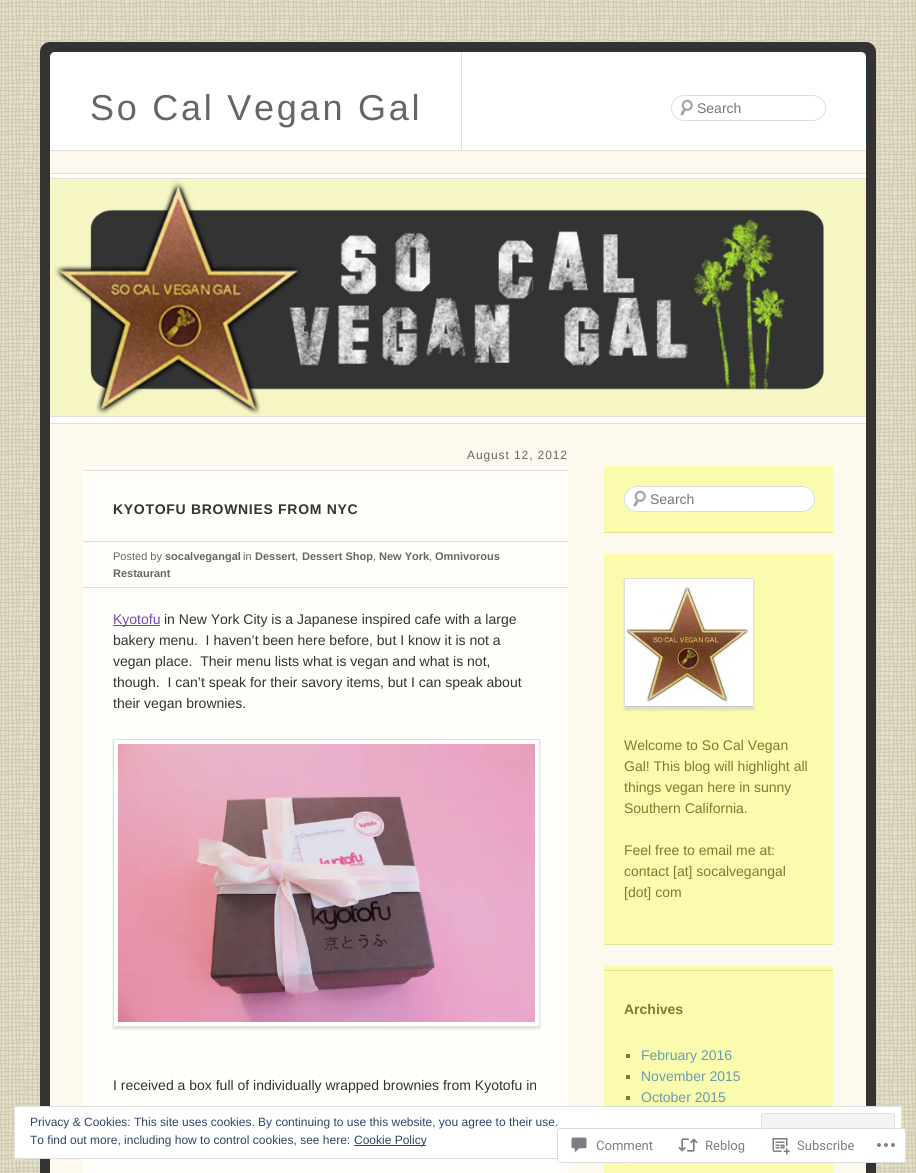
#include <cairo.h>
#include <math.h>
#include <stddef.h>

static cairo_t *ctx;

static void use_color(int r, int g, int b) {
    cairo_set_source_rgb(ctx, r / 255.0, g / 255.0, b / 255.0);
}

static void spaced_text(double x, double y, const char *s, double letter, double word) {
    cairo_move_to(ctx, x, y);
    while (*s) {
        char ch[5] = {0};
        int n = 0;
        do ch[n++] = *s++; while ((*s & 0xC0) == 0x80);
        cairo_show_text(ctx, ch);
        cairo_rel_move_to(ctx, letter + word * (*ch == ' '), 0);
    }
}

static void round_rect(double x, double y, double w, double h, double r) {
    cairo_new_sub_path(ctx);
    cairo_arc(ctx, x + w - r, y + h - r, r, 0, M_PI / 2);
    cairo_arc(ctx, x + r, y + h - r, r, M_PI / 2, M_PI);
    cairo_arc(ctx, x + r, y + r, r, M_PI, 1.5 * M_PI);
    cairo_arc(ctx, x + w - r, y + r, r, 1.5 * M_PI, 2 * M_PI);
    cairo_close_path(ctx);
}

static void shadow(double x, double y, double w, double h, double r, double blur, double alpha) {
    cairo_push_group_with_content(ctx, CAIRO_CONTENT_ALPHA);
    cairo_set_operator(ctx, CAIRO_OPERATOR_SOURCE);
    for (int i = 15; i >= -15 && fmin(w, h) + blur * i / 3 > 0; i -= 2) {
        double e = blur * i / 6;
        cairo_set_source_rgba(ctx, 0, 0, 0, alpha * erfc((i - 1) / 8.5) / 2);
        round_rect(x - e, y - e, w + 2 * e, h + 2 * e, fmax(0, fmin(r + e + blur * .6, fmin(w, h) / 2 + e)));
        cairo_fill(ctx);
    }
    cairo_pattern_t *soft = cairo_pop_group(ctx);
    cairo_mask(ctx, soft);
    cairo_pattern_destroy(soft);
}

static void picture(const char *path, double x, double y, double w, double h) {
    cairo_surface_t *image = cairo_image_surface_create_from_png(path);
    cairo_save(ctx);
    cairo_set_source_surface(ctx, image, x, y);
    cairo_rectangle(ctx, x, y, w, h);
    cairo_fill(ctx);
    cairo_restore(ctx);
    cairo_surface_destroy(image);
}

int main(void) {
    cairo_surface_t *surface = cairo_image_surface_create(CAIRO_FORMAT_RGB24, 916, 1173);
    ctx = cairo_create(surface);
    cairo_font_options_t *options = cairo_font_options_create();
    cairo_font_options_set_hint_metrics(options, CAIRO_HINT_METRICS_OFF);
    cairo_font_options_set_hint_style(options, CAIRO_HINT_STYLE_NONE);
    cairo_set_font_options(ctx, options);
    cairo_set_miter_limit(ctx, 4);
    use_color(231, 226, 204);
    cairo_paint(ctx);
    picture("img1.png", 0, 0, 916, 1173);
    use_color(51, 51, 51);
    round_rect(40, 42, 836, 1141, 10);
    cairo_fill(ctx);
    use_color(255, 255, 255);
    cairo_new_path(ctx);
    cairo_move_to(ctx, 55, 52);
    cairo_line_to(ctx, 861, 52);
    cairo_curve_to(ctx, 864, 52, 866, 54, 866, 57);
    cairo_line_to(ctx, 866, 423);
    cairo_line_to(ctx, 50, 423);
    cairo_line_to(ctx, 50, 57);
    cairo_curve_to(ctx, 50, 54, 52, 52, 55, 52);
    cairo_close_path(ctx);
    cairo_fill(ctx);
    use_color(228, 224, 213);
    cairo_rectangle(ctx, 461, 52, 1, 98);
    cairo_fill(ctx);
    cairo_select_font_face(ctx, "Liberation Sans", CAIRO_FONT_SLANT_NORMAL, CAIRO_FONT_WEIGHT_NORMAL);
    cairo_set_font_size(ctx, 36);
    use_color(102, 102, 102);
    spaced_text(90, 120, "So Cal Vegan Gal", 2.75, 0);
    use_color(253, 249, 238);
    cairo_rectangle(ctx, 50, 151, 816, 22);
    cairo_fill(ctx);
    use_color(228, 224, 213);
    cairo_rectangle(ctx, 50, 150, 816, 1);
    cairo_fill(ctx);
    cairo_rectangle(ctx, 50, 173, 816, 1);
    cairo_fill(ctx);
    picture("img2.png", 680, 99, 13, 17);
    round_rect(671.5, 95.5, 154, 25, 12.5);
    use_color(221, 221, 221);
    cairo_set_line_width(ctx, 1);
    cairo_stroke(ctx);
    cairo_set_font_size(ctx, 14);
    use_color(117, 117, 117);
    cairo_move_to(ctx, 697, 113);
    cairo_show_text(ctx, "Search");
    use_color(228, 224, 213);
    cairo_rectangle(ctx, 50, 178, 816, 1);
    cairo_fill(ctx);
    picture("img3.png", 50, 179, 816, 237);
    cairo_rectangle(ctx, 50, 416, 816, 1);
    cairo_fill(ctx);
    use_color(253, 249, 238);
    cairo_new_path(ctx);
    cairo_move_to(ctx, 50, 424);
    cairo_line_to(ctx, 866, 424);
    cairo_line_to(ctx, 866, 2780);
    cairo_curve_to(ctx, 866, 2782, 864, 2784, 861, 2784);
    cairo_line_to(ctx, 55, 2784);
    cairo_curve_to(ctx, 52, 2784, 50, 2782, 50, 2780);
    cairo_close_path(ctx);
    cairo_fill(ctx);
    use_color(228, 224, 213);
    cairo_rectangle(ctx, 50, 423, 816, 1);
    cairo_fill(ctx);
    use_color(255, 254, 250);
    cairo_rectangle(ctx, 83, 466, 485, 707);
    cairo_fill(ctx);
    use_color(228, 224, 213);
    cairo_rectangle(ctx, 83, 470, 485, 1);
    cairo_fill(ctx);
    cairo_rectangle(ctx, 83, 541, 485, 1);
    cairo_fill(ctx);
    cairo_rectangle(ctx, 83, 587, 485, 1);
    cairo_fill(ctx);
    cairo_set_font_size(ctx, 12);
    use_color(102, 102, 102);
    spaced_text(467, 459, "August 12, 2012", 0.9, 0);
    cairo_set_font_size(ctx, 11);
    cairo_move_to(ctx, 113, 560);
    cairo_show_text(ctx, "Posted by");
    cairo_select_font_face(ctx, "Liberation Sans", CAIRO_FONT_SLANT_NORMAL, CAIRO_FONT_WEIGHT_BOLD);
    cairo_move_to(ctx, 165, 560);
    cairo_show_text(ctx, "socalvegangal");
    cairo_select_font_face(ctx, "Liberation Sans", CAIRO_FONT_SLANT_NORMAL, CAIRO_FONT_WEIGHT_NORMAL);
    cairo_move_to(ctx, 243, 560);
    cairo_show_text(ctx, "in");
    cairo_select_font_face(ctx, "Liberation Sans", CAIRO_FONT_SLANT_NORMAL, CAIRO_FONT_WEIGHT_BOLD);
    cairo_move_to(ctx, 255, 560);
    cairo_show_text(ctx, "Dessert");
    cairo_select_font_face(ctx, "Liberation Sans", CAIRO_FONT_SLANT_NORMAL, CAIRO_FONT_WEIGHT_NORMAL);
    cairo_move_to(ctx, 295, 560);
    cairo_show_text(ctx, ",");
    cairo_select_font_face(ctx, "Liberation Sans", CAIRO_FONT_SLANT_NORMAL, CAIRO_FONT_WEIGHT_BOLD);
    cairo_move_to(ctx, 302, 560);
    cairo_show_text(ctx, "Dessert Shop");
    cairo_select_font_face(ctx, "Liberation Sans", CAIRO_FONT_SLANT_NORMAL, CAIRO_FONT_WEIGHT_NORMAL);
    cairo_move_to(ctx, 373, 560);
    cairo_show_text(ctx, ",");
    cairo_select_font_face(ctx, "Liberation Sans", CAIRO_FONT_SLANT_NORMAL, CAIRO_FONT_WEIGHT_BOLD);
    cairo_move_to(ctx, 379, 560);
    cairo_show_text(ctx, "New York");
    cairo_select_font_face(ctx, "Liberation Sans", CAIRO_FONT_SLANT_NORMAL, CAIRO_FONT_WEIGHT_NORMAL);
    cairo_move_to(ctx, 429, 560);
    cairo_show_text(ctx, ",");
    cairo_select_font_face(ctx, "Liberation Sans", CAIRO_FONT_SLANT_NORMAL, CAIRO_FONT_WEIGHT_BOLD);
    cairo_move_to(ctx, 435, 560);
    cairo_show_text(ctx, "Omnivorous");
    cairo_move_to(ctx, 113, 577);
    cairo_show_text(ctx, "Restaurant");
    cairo_set_font_size(ctx, 14);
    use_color(51, 51, 51);
    spaced_text(113, 514, "KYOTOFU BROWNIES FROM NYC", 0.7, 0);
    use_color(115, 72, 170);
    cairo_rectangle(ctx, 113, 625, 47, 1);
    cairo_fill(ctx);
    cairo_select_font_face(ctx, "Liberation Sans", CAIRO_FONT_SLANT_NORMAL, CAIRO_FONT_WEIGHT_NORMAL);
    cairo_move_to(ctx, 113, 624);
    cairo_show_text(ctx, "Kyotofu");
    use_color(51, 51, 51);
    cairo_move_to(ctx, 164, 624);
    cairo_show_text(ctx, "in New York City is a Japanese inspired cafe with a large");
    cairo_move_to(ctx, 113, 645);
    cairo_show_text(ctx, "bakery menu.  I haven’t been here before, but I know it is not a");
    cairo_move_to(ctx, 113, 666);
    cairo_show_text(ctx, "vegan place.  Their menu lists what is vegan and what is not,");
    cairo_move_to(ctx, 113, 687);
    cairo_show_text(ctx, "though.  I can’t speak for their savory items, but I can speak about");
    cairo_move_to(ctx, 113, 708);
    cairo_show_text(ctx, "their vegan brownies.");
    use_color(191, 191, 182);
    shadow(113, 741, 427, 288, 0, 1, 0.5);
    use_color(255, 255, 255);
    cairo_rectangle(ctx, 113.5, 739.5, 426, 287);
    cairo_fill_preserve(ctx);
    use_color(228, 224, 213);
    cairo_stroke(ctx);
    picture("img4.png", 118, 744, 417, 278);
    use_color(51, 51, 51);
    cairo_move_to(ctx, 113, 1090);
    cairo_show_text(ctx, "I received a box full of individually wrapped brownies from Kyotofu in");
    use_color(251, 251, 173);
    cairo_rectangle(ctx, 604, 466, 229, 66);
    cairo_fill(ctx);
    use_color(226, 226, 148);
    cairo_rectangle(ctx, 604, 532, 229, 1);
    cairo_fill(ctx);
    use_color(255, 255, 255);
    round_rect(624, 486, 191, 26, 13);
    cairo_fill(ctx);
    picture("img2.png", 633, 490, 13, 17);
    round_rect(624.5, 486.5, 190, 25, 12.5);
    use_color(221, 221, 221);
    cairo_stroke(ctx);
    use_color(117, 117, 117);
    cairo_move_to(ctx, 650, 504);
    cairo_show_text(ctx, "Search");
    use_color(251, 251, 173);
    cairo_rectangle(ctx, 604, 554, 229, 390);
    cairo_fill(ctx);
    use_color(226, 226, 148);
    cairo_rectangle(ctx, 604, 944, 229, 1);
    cairo_fill(ctx);
    use_color(191, 191, 182);
    shadow(624, 580, 130, 130, 0, 1, 0.5);
    cairo_rectangle(ctx, 624.5, 578.5, 129, 129);
    use_color(228, 224, 213);
    cairo_stroke(ctx);
    picture("img5.png", 625, 579, 128, 128);
    use_color(124, 124, 46);
    cairo_move_to(ctx, 624, 750);
    cairo_show_text(ctx, "Welcome to So Cal Vegan");
    cairo_move_to(ctx, 624, 771);
    cairo_show_text(ctx, "Gal! This blog will highlight all");
    cairo_move_to(ctx, 624, 792);
    cairo_show_text(ctx, "things vegan here in sunny");
    cairo_move_to(ctx, 624, 813);
    cairo_show_text(ctx, "Southern California.");
    cairo_move_to(ctx, 624, 855);
    cairo_show_text(ctx, "Feel free to email me at:");
    cairo_move_to(ctx, 624, 876);
    cairo_show_text(ctx, "contact [at] socalvegangal");
    cairo_move_to(ctx, 624, 897);
    cairo_show_text(ctx, "[dot] com");
    use_color(251, 251, 173);
    cairo_rectangle(ctx, 604, 966, 229, 207);
    cairo_fill(ctx);
    use_color(226, 226, 148);
    cairo_rectangle(ctx, 604, 970, 229, 1);
    cairo_fill(ctx);
    cairo_select_font_face(ctx, "Liberation Sans", CAIRO_FONT_SLANT_NORMAL, CAIRO_FONT_WEIGHT_BOLD);
    use_color(124, 124, 46);
    cairo_move_to(ctx, 624, 1014);
    cairo_show_text(ctx, "Archives");
    cairo_rectangle(ctx, 626, 1054, 4, 4);
    cairo_fill(ctx);
    cairo_select_font_face(ctx, "Liberation Sans", CAIRO_FONT_SLANT_NORMAL, CAIRO_FONT_WEIGHT_NORMAL);
    use_color(103, 157, 175);
    cairo_move_to(ctx, 641, 1060);
    cairo_show_text(ctx, "February 2016");
    use_color(124, 124, 46);
    cairo_rectangle(ctx, 626, 1075, 4, 4);
    cairo_fill(ctx);
    use_color(103, 157, 175);
    cairo_move_to(ctx, 641, 1081);
    cairo_show_text(ctx, "November 2015");
    use_color(124, 124, 46);
    cairo_rectangle(ctx, 626, 1096, 4, 4);
    cairo_fill(ctx);
    use_color(103, 157, 175);
    cairo_move_to(ctx, 641, 1102);
    cairo_show_text(ctx, "October 2015");
    use_color(124, 124, 46);
    cairo_rectangle(ctx, 626, 1159, 4, 4);
    cairo_fill(ctx);
    use_color(255, 255, 255);
    cairo_rectangle(ctx, 14.5, 1106.5, 887, 52);
    cairo_fill_preserve(ctx);
    use_color(222, 222, 222);
    cairo_stroke(ctx);
    cairo_set_font_size(ctx, 12);
    use_color(46, 68, 103);
    cairo_move_to(ctx, 30, 1126);
    cairo_show_text(ctx, "Privacy & Cookies: This site uses cookies. By continuing to use this website, you agree to their use.");
    use_color(243, 243, 243);
    round_rect(761.5, 1113.5, 133, 38, 2.5);
    cairo_fill_preserve(ctx);
    use_color(222, 222, 222);
    cairo_stroke(ctx);
    use_color(46, 68, 103);
    cairo_move_to(ctx, 30, 1144);
    cairo_show_text(ctx, "To find out more, including how to control cookies, see here:");
    cairo_rectangle(ctx, 354, 1145, 72, 1);
    cairo_fill(ctx);
    cairo_move_to(ctx, 354, 1144);
    cairo_show_text(ctx, "Cookie Policy");
    cairo_set_source_rgba(ctx, 1, 1, 1, 0.98);
    round_rect(557, 1128, 349, 35, 3);
    cairo_fill(ctx);
    round_rect(557.5, 1128.5, 348, 34, 2.5);
    cairo_set_source_rgba(ctx, 0.863, 0.863, 0.871, 0.98);
    cairo_stroke(ctx);
    picture("img6.png", 571, 1137, 16, 16);
    cairo_select_font_face(ctx, "Roboto", CAIRO_FONT_SLANT_NORMAL, CAIRO_FONT_WEIGHT_NORMAL);
    cairo_set_font_size(ctx, 13);
    use_color(123, 127, 133);
    cairo_move_to(ctx, 596, 1150);
    cairo_show_text(ctx, "Comment");
    picture("img7.png", 678, 1138, 20, 14);
    cairo_move_to(ctx, 705, 1150);
    cairo_show_text(ctx, "Reblog");
    picture("img8.png", 772, 1138, 18, 17);
    cairo_move_to(ctx, 797, 1150);
    cairo_show_text(ctx, "Subscribe");
    picture("img9.png", 877, 1143, 18, 4);
    cairo_surface_write_to_png(surface, "result.png");
    cairo_font_options_destroy(options);
    cairo_destroy(ctx);
    cairo_surface_destroy(surface);
    return 0;
}
